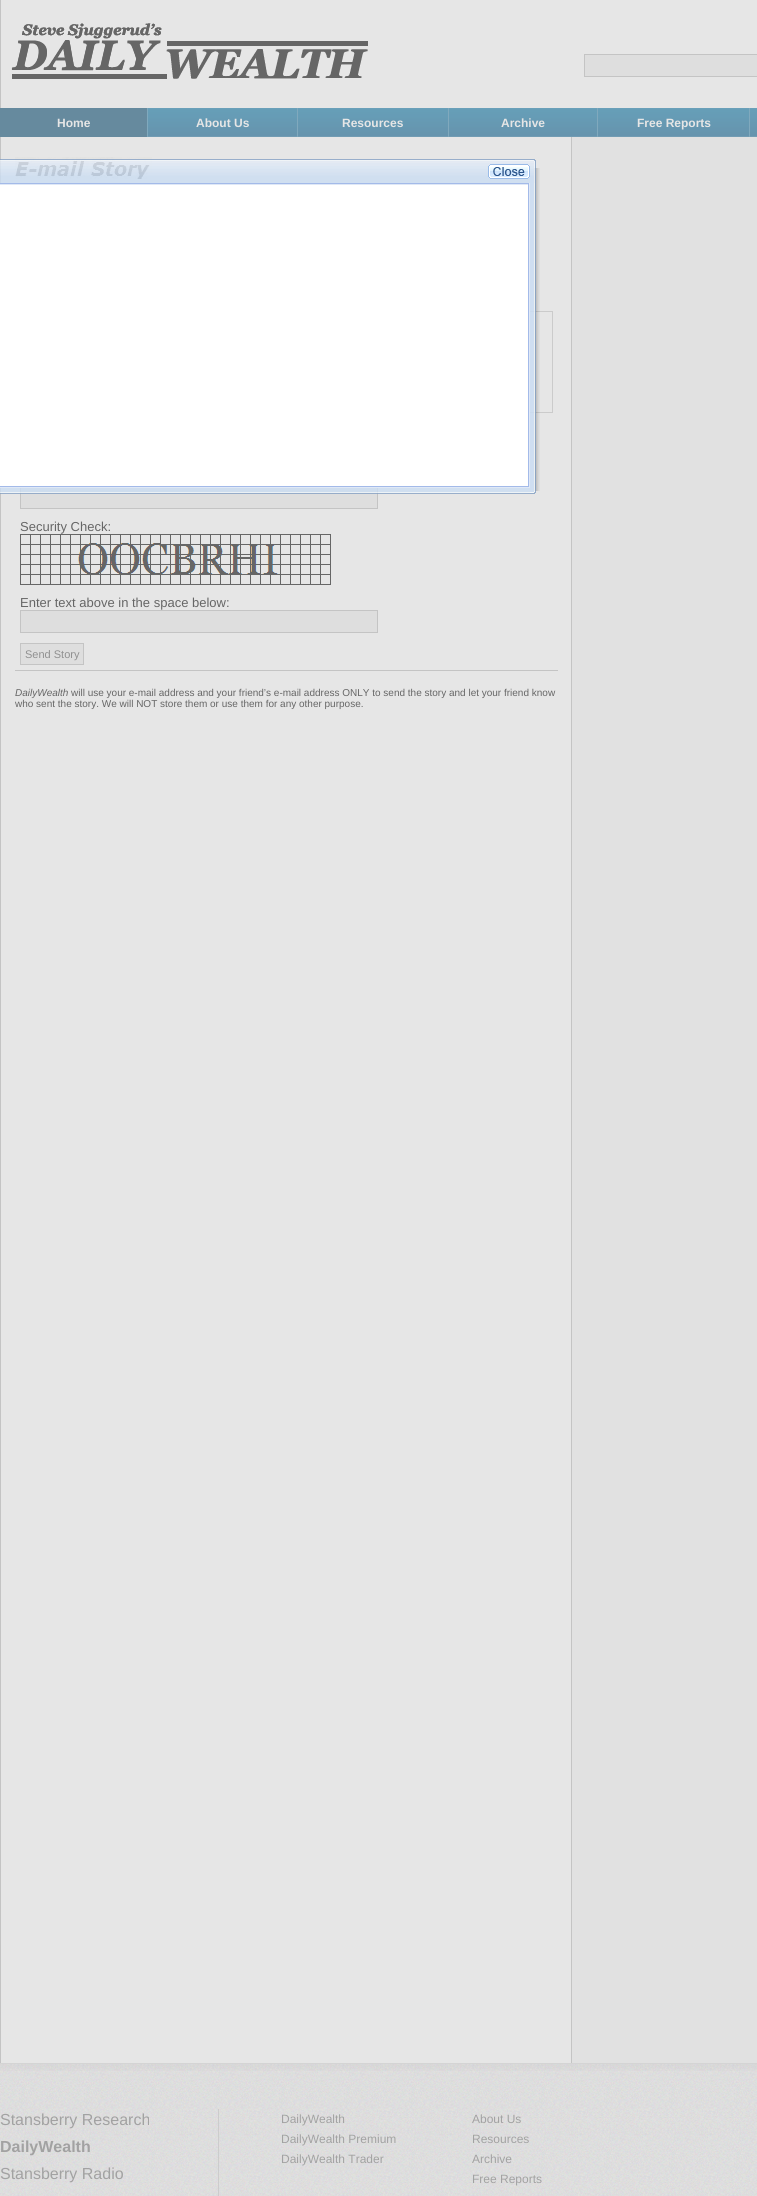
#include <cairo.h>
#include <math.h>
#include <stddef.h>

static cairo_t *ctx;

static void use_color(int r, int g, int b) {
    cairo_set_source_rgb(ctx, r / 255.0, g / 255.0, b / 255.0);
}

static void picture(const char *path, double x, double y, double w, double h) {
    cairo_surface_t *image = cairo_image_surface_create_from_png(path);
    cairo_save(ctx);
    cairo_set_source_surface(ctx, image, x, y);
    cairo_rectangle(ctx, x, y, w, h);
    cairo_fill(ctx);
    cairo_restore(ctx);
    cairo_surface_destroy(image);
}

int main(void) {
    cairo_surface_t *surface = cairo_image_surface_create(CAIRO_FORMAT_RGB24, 757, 2196);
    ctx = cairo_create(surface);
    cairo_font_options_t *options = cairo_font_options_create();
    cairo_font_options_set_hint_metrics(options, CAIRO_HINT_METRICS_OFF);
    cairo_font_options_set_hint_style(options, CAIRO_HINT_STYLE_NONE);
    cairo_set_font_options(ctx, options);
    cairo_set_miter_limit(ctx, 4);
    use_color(255, 255, 255);
    cairo_paint(ctx);
    picture("img1.png", 0, 0, 757, 2063);
    use_color(230, 230, 230);
    cairo_rectangle(ctx, 571, 0, 186, 108);
    cairo_fill(ctx);
    picture("img2.png", 11, 23, 357, 56);
    use_color(222, 222, 222);
    cairo_rectangle(ctx, 584.5, 54.5, 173, 22);
    cairo_fill_preserve(ctx);
    use_color(196, 196, 196);
    cairo_set_line_width(ctx, 1);
    cairo_stroke(ctx);
    use_color(102, 138, 158);
    cairo_rectangle(ctx, 0, 108, 147, 29);
    cairo_fill(ctx);
    use_color(128, 169, 189);
    cairo_rectangle(ctx, 147, 108, 1, 29);
    cairo_fill(ctx);
    cairo_select_font_face(ctx, "Liberation Sans", CAIRO_FONT_SLANT_NORMAL, CAIRO_FONT_WEIGHT_BOLD);
    cairo_set_font_size(ctx, 12);
    use_color(230, 230, 230);
    cairo_move_to(ctx, 57, 127);
    cairo_show_text(ctx, "Home");
    picture("img3.png", 148, 108, 149, 29);
    use_color(128, 169, 189);
    cairo_rectangle(ctx, 297, 108, 1, 29);
    cairo_fill(ctx);
    use_color(230, 230, 230);
    cairo_move_to(ctx, 196, 127);
    cairo_show_text(ctx, "About Us");
    picture("img4.png", 298, 108, 150, 29);
    use_color(128, 169, 189);
    cairo_rectangle(ctx, 448, 108, 1, 29);
    cairo_fill(ctx);
    use_color(230, 230, 230);
    cairo_move_to(ctx, 342, 127);
    cairo_show_text(ctx, "Resources");
    picture("img5.png", 449, 108, 148, 29);
    use_color(128, 169, 189);
    cairo_rectangle(ctx, 597, 108, 1, 29);
    cairo_fill(ctx);
    use_color(230, 230, 230);
    cairo_move_to(ctx, 501, 127);
    cairo_show_text(ctx, "Archive");
    picture("img6.png", 598, 108, 151, 29);
    use_color(128, 169, 189);
    cairo_rectangle(ctx, 749, 108, 1, 29);
    cairo_fill(ctx);
    use_color(230, 230, 230);
    cairo_move_to(ctx, 637, 127);
    cairo_show_text(ctx, "Free Reports");
    picture("img7.png", 750, 108, 7, 29);
    picture("img8.png", 15, 157, 137, 22);
    cairo_rectangle(ctx, 20.5, 311.5, 532, 101);
    use_color(203, 203, 203);
    cairo_stroke(ctx);
    use_color(222, 222, 222);
    cairo_rectangle(ctx, 21, 488, 356, 20);
    cairo_fill(ctx);
    cairo_rectangle(ctx, 20.5, 486.5, 357, 22);
    use_color(196, 196, 196);
    cairo_stroke(ctx);
    cairo_select_font_face(ctx, "Liberation Sans", CAIRO_FONT_SLANT_NORMAL, CAIRO_FONT_WEIGHT_NORMAL);
    cairo_set_font_size(ctx, 13);
    use_color(102, 102, 102);
    cairo_move_to(ctx, 20, 531);
    cairo_show_text(ctx, "Security Check:");
    picture("img9.png", 20, 534, 311, 51);
    cairo_move_to(ctx, 20, 607);
    cairo_show_text(ctx, "Enter text above in the space below:");
    use_color(222, 222, 222);
    cairo_rectangle(ctx, 20.5, 610.5, 357, 22);
    cairo_fill_preserve(ctx);
    use_color(196, 196, 196);
    cairo_stroke(ctx);
    cairo_rectangle(ctx, 15, 670, 543, 1);
    cairo_fill(ctx);
    use_color(222, 222, 222);
    cairo_rectangle(ctx, 20.5, 643.5, 63, 21);
    cairo_fill_preserve(ctx);
    use_color(196, 196, 196);
    cairo_stroke(ctx);
    cairo_set_font_size(ctx, 11);
    use_color(144, 144, 144);
    cairo_move_to(ctx, 25, 658);
    cairo_show_text(ctx, "Send Story");
    cairo_select_font_face(ctx, "Liberation Sans", CAIRO_FONT_SLANT_ITALIC, CAIRO_FONT_WEIGHT_NORMAL);
    cairo_set_font_size(ctx, 10);
    use_color(102, 102, 102);
    cairo_move_to(ctx, 15, 696);
    cairo_show_text(ctx, "DailyWealth");
    cairo_select_font_face(ctx, "Liberation Sans", CAIRO_FONT_SLANT_NORMAL, CAIRO_FONT_WEIGHT_NORMAL);
    cairo_move_to(ctx, 71, 696);
    cairo_show_text(ctx, "will use your e-mail address and your friend’s e-mail address ONLY to send the story and let your friend know");
    cairo_move_to(ctx, 15, 707);
    cairo_show_text(ctx, "who sent the story. We will NOT store them or use them for any other purpose.");
    picture("img16.png", 534, 168, 6, 323);
    picture("img10.png", 530, 159, 6, 24);
    picture("img11.png", 0, 159, 530, 24);
    picture("img12.png", 488, 164, 42, 15);
    picture("img13.png", 530, 183, 6, 305);
    use_color(163, 186, 233);
    cairo_rectangle(ctx, 0, 183, 530, 1);
    cairo_fill(ctx);
    use_color(223, 232, 246);
    cairo_rectangle(ctx, 529, 183, 1, 305);
    cairo_fill(ctx);
    cairo_rectangle(ctx, 0, 487, 530, 1);
    cairo_fill(ctx);
    cairo_rectangle(ctx, 0, 184, 529, 1);
    cairo_fill(ctx);
    use_color(163, 186, 233);
    cairo_rectangle(ctx, 528, 184, 1, 303);
    cairo_fill(ctx);
    cairo_rectangle(ctx, 0, 486, 529, 1);
    cairo_fill(ctx);
    use_color(255, 255, 255);
    cairo_rectangle(ctx, 0, 185, 528, 301);
    cairo_fill(ctx);
    picture("img14.png", 530, 488, 6, 6);
    picture("img15.png", 0, 488, 530, 6);
    picture("img17.png", 0, 2064, 757, 132);
    picture("img18.png", 0, 2063, 757, 8);
    use_color(204, 204, 204);
    cairo_rectangle(ctx, 218, 2109, 1, 87);
    cairo_fill(ctx);
    cairo_set_font_size(ctx, 16);
    use_color(162, 162, 162);
    cairo_move_to(ctx, 0, 2125);
    cairo_show_text(ctx, "Stansberry Research");
    cairo_select_font_face(ctx, "Liberation Sans", CAIRO_FONT_SLANT_NORMAL, CAIRO_FONT_WEIGHT_BOLD);
    cairo_move_to(ctx, 0, 2152);
    cairo_show_text(ctx, "DailyWealth");
    cairo_select_font_face(ctx, "Liberation Sans", CAIRO_FONT_SLANT_NORMAL, CAIRO_FONT_WEIGHT_NORMAL);
    cairo_move_to(ctx, 0, 2179);
    cairo_show_text(ctx, "Stansberry Radio");
    cairo_set_font_size(ctx, 12);
    cairo_move_to(ctx, 281, 2123);
    cairo_show_text(ctx, "DailyWealth");
    cairo_move_to(ctx, 281, 2143);
    cairo_show_text(ctx, "DailyWealth Premium");
    cairo_move_to(ctx, 281, 2163);
    cairo_show_text(ctx, "DailyWealth Trader");
    cairo_move_to(ctx, 472, 2123);
    cairo_show_text(ctx, "About Us");
    cairo_move_to(ctx, 472, 2143);
    cairo_show_text(ctx, "Resources");
    cairo_move_to(ctx, 472, 2163);
    cairo_show_text(ctx, "Archive");
    cairo_move_to(ctx, 472, 2183);
    cairo_show_text(ctx, "Free Reports");
    cairo_surface_write_to_png(surface, "result.png");
    cairo_font_options_destroy(options);
    cairo_destroy(ctx);
    cairo_surface_destroy(surface);
    return 0;
}
